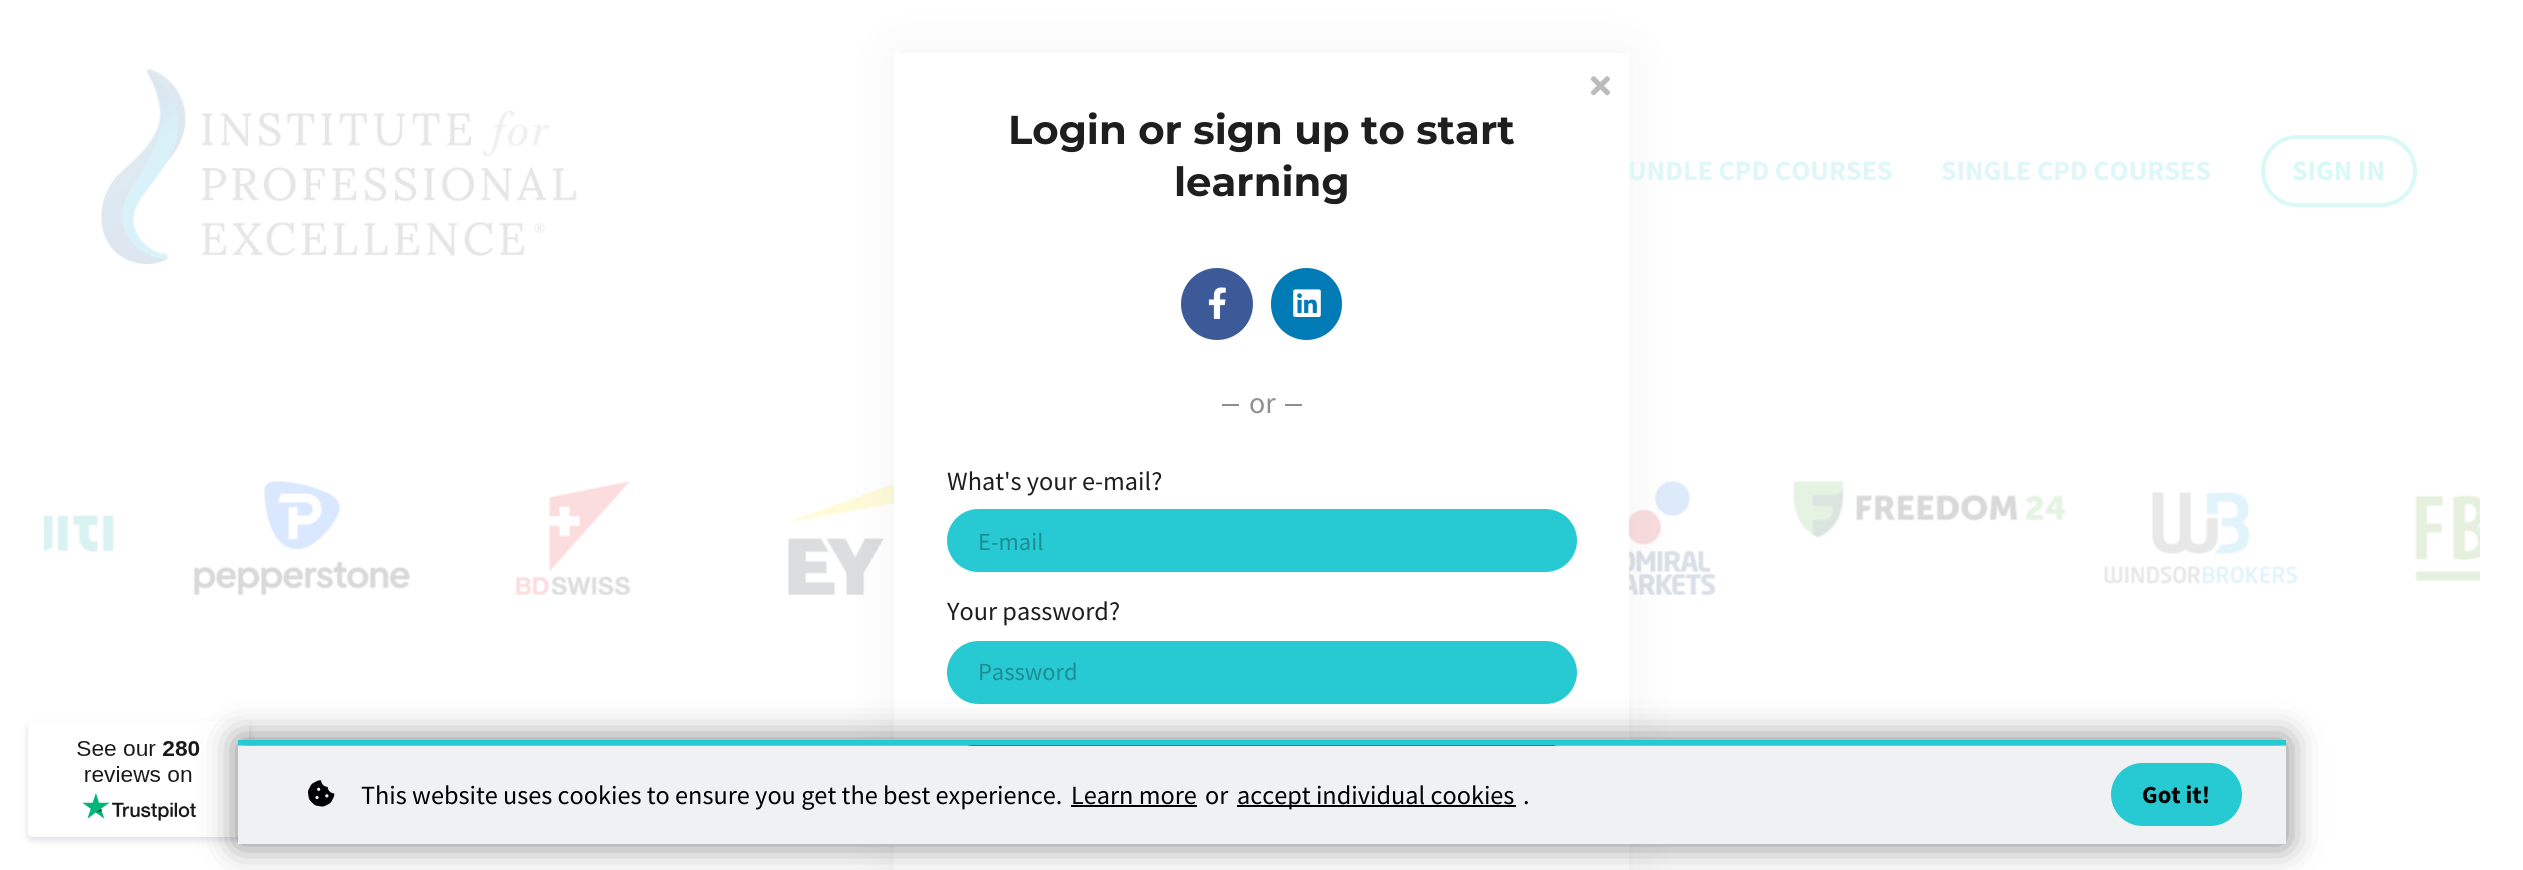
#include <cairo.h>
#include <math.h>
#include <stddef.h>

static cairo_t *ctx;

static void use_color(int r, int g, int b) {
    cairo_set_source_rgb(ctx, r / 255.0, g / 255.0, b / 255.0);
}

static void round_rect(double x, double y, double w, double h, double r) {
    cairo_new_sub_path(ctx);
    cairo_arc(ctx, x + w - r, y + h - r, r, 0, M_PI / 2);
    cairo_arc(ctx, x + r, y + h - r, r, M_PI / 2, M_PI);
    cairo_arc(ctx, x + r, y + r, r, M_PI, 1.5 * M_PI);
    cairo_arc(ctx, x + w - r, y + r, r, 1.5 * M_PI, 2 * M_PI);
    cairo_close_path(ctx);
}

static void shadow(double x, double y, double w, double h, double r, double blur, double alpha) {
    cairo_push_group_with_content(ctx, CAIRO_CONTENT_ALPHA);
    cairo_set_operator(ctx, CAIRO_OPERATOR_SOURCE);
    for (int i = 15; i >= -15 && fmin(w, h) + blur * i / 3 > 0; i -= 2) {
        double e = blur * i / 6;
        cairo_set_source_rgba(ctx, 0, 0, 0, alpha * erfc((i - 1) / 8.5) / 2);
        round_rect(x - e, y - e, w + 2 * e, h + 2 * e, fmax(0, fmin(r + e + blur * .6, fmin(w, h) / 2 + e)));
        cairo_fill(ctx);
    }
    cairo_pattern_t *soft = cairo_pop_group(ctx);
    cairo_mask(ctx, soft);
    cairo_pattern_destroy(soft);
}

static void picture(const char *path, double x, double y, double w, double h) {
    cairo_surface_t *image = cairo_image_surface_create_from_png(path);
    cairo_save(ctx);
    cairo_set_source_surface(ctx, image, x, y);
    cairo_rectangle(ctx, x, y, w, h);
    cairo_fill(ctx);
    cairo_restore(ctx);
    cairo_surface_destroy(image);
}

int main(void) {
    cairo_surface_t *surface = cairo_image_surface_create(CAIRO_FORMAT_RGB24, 2523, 870);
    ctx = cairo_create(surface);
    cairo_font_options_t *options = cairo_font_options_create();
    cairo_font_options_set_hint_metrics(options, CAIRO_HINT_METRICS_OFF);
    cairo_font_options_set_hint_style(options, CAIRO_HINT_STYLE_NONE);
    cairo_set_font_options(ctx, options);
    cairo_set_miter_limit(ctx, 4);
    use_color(255, 255, 255);
    cairo_paint(ctx);
    picture("img8.png", 787, 483, 107, 112);
    picture("img9.png", 1629, 481, 87, 114);
    use_color(0, 0, 0);
    shadow(894, 53, 735, 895, 0, 26, 0.05);
    use_color(255, 255, 255);
    cairo_rectangle(ctx, 894, 53, 735, 817);
    cairo_fill(ctx);
    picture("img1.png", 1590, 76, 20, 20);
    cairo_select_font_face(ctx, "Montserrat", CAIRO_FONT_SLANT_NORMAL, CAIRO_FONT_WEIGHT_BOLD);
    cairo_set_font_size(ctx, 40.25);
    use_color(30, 30, 30);
    cairo_move_to(ctx, 1008, 144);
    cairo_show_text(ctx, "Login or sign up to start");
    cairo_move_to(ctx, 1174, 196);
    cairo_show_text(ctx, "learning");
    use_color(60, 90, 152);
    cairo_new_path(ctx);
    cairo_arc(ctx, 1217, 304, 36, 0, 2 * M_PI);
    cairo_fill(ctx);
    picture("img2.png", 1208, 287, 18, 32);
    use_color(0, 123, 182);
    round_rect(1271, 268, 71, 72, 35.5);
    cairo_fill(ctx);
    picture("img3.png", 1293, 289, 28, 28);
    use_color(143, 143, 143);
    cairo_rectangle(ctx, 1222, 404, 17, 2);
    cairo_fill(ctx);
    cairo_select_font_face(ctx, "Source Sans Pro", CAIRO_FONT_SLANT_NORMAL, CAIRO_FONT_WEIGHT_NORMAL);
    cairo_set_font_size(ctx, 30);
    cairo_move_to(ctx, 1249, 413);
    cairo_show_text(ctx, "or");
    cairo_rectangle(ctx, 1285, 404, 17, 2);
    cairo_fill(ctx);
    cairo_set_font_size(ctx, 26.25);
    use_color(30, 30, 30);
    cairo_move_to(ctx, 947, 490);
    cairo_show_text(ctx, "What's your e-mail?");
    use_color(39, 202, 210);
    round_rect(949, 511, 626, 59, 29.5);
    cairo_fill_preserve(ctx);
    cairo_set_line_width(ctx, 4);
    cairo_stroke(ctx);
    cairo_set_font_size(ctx, 24.5);
    use_color(27, 141, 147);
    cairo_move_to(ctx, 978, 550);
    cairo_show_text(ctx, "E-mail");
    cairo_set_font_size(ctx, 26.25);
    use_color(30, 30, 30);
    cairo_move_to(ctx, 947, 620);
    cairo_show_text(ctx, "Your password?");
    use_color(39, 202, 210);
    round_rect(949, 643, 626, 59, 29.5);
    cairo_fill_preserve(ctx);
    cairo_stroke(ctx);
    cairo_set_font_size(ctx, 24.5);
    use_color(27, 141, 147);
    cairo_move_to(ctx, 978, 680);
    cairo_show_text(ctx, "Password");
    use_color(39, 202, 210);
    round_rect(947, 744, 630, 63, 31.5);
    cairo_fill(ctx);
    picture("img4.png", 101, 68, 476, 196);
    cairo_select_font_face(ctx, "Source Sans Pro", CAIRO_FONT_SLANT_NORMAL, CAIRO_FONT_WEIGHT_BOLD);
    cairo_set_font_size(ctx, 28);
    use_color(223, 247, 248);
    cairo_move_to(ctx, 1628, 180);
    cairo_show_text(ctx, "UNDLE CPD COURSES");
    cairo_move_to(ctx, 1941, 180);
    cairo_show_text(ctx, "SINGLE CPD COURSES");
    round_rect(2263, 137, 152, 68, 34);
    use_color(217, 249, 246);
    cairo_stroke(ctx);
    cairo_move_to(ctx, 2292, 180);
    cairo_show_text(ctx, "SIGN IN");
    picture("img5.png", 44, 515, 70, 37);
    picture("img6.png", 193, 481, 217, 114);
    picture("img7.png", 515, 481, 116, 114);
    picture("img10.png", 1793, 481, 273, 57);
    picture("img11.png", 2103, 492, 195, 92);
    picture("img12.png", 2415, 495, 65, 87);
    use_color(220, 220, 230);
    shadow(28, 725, 221, 115, 5, 3.5, 1);
    use_color(255, 255, 255);
    round_rect(28, 721, 221, 116, 5);
    cairo_fill(ctx);
    picture("img13.png", 77, 741, 123, 80);
    use_color(0, 0, 0);
    shadow(238, 740, 2048, 104, 0, 17.5, 0.5);
    use_color(240, 241, 243);
    cairo_rectangle(ctx, 238, 746, 2048, 98);
    cairo_fill(ctx);
    use_color(39, 202, 210);
    cairo_rectangle(ctx, 238, 740, 2048, 5);
    cairo_fill(ctx);
    picture("img14.png", 308, 780, 27, 27);
    cairo_select_font_face(ctx, "Source Sans Pro", CAIRO_FONT_SLANT_NORMAL, CAIRO_FONT_WEIGHT_NORMAL);
    cairo_set_font_size(ctx, 26.25);
    use_color(0, 0, 0);
    cairo_move_to(ctx, 361, 804);
    cairo_show_text(ctx, "This website uses cookies to ensure you get the best experience.");
    cairo_move_to(ctx, 1071, 804);
    cairo_show_text(ctx, "Learn more");
    cairo_rectangle(ctx, 1071, 805, 126, 2);
    cairo_fill(ctx);
    cairo_move_to(ctx, 1205, 804);
    cairo_show_text(ctx, "or");
    cairo_rectangle(ctx, 1237, 805, 279, 2);
    cairo_fill(ctx);
    cairo_move_to(ctx, 1237, 804);
    cairo_show_text(ctx, "accept individual cookies");
    cairo_move_to(ctx, 1523, 804);
    cairo_show_text(ctx, ".");
    use_color(39, 202, 210);
    round_rect(2111, 763, 131, 63, 31.5);
    cairo_fill(ctx);
    cairo_select_font_face(ctx, "Source Sans Pro", CAIRO_FONT_SLANT_NORMAL, CAIRO_FONT_WEIGHT_BOLD);
    cairo_set_font_size(ctx, 24.5);
    use_color(0, 0, 0);
    cairo_move_to(ctx, 2142, 803);
    cairo_show_text(ctx, "Got it!");
    cairo_surface_write_to_png(surface, "result.png");
    cairo_font_options_destroy(options);
    cairo_destroy(ctx);
    cairo_surface_destroy(surface);
    return 0;
}
